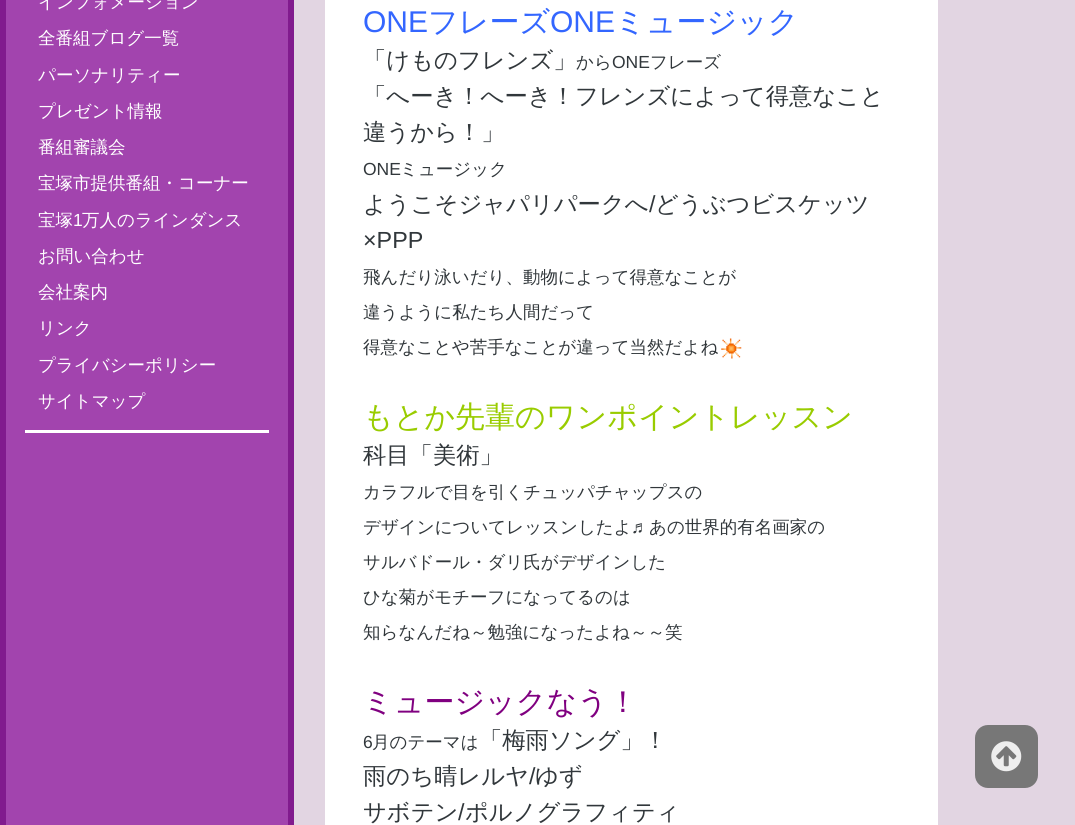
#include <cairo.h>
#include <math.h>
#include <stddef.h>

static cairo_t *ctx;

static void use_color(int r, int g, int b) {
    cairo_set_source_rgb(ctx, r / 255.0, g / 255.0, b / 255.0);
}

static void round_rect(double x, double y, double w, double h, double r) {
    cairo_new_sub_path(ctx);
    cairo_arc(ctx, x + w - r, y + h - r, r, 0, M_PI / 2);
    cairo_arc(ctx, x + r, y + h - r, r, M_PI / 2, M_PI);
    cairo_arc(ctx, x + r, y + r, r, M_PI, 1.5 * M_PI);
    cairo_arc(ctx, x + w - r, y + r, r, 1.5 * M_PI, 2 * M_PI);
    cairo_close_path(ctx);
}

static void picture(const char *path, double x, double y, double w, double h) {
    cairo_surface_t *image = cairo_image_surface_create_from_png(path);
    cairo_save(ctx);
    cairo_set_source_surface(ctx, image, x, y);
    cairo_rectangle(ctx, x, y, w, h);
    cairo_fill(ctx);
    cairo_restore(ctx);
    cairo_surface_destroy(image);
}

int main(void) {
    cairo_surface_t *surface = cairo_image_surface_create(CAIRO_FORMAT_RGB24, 1075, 825);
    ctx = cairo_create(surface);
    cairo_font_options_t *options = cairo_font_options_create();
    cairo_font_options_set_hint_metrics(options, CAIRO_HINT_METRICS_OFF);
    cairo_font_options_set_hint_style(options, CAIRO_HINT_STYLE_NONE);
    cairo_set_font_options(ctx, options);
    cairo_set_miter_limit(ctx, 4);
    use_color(226, 213, 226);
    cairo_paint(ctx);
    use_color(162, 68, 174);
    cairo_rectangle(ctx, 6, 0, 282, 825);
    cairo_fill(ctx);
    use_color(129, 27, 142);
    cairo_rectangle(ctx, 288, 0, 6, 825);
    cairo_fill(ctx);
    cairo_rectangle(ctx, 0, 0, 6, 825);
    cairo_fill(ctx);
    use_color(255, 255, 255);
    cairo_rectangle(ctx, 25, 430, 244, 3);
    cairo_fill(ctx);
    cairo_select_font_face(ctx, "WenQuanYi Zen Hei Medium", CAIRO_FONT_SLANT_NORMAL, CAIRO_FONT_WEIGHT_NORMAL);
    cairo_set_font_size(ctx, 17.5);
    cairo_move_to(ctx, 38, 8);
    cairo_show_text(ctx, "インフォメーション");
    cairo_move_to(ctx, 38, 44);
    cairo_show_text(ctx, "全番組ブログ一覧");
    cairo_move_to(ctx, 38, 81);
    cairo_show_text(ctx, "パーソナリティー");
    cairo_move_to(ctx, 38, 117);
    cairo_show_text(ctx, "プレゼント情報");
    cairo_move_to(ctx, 38, 153);
    cairo_show_text(ctx, "番組審議会");
    cairo_move_to(ctx, 38, 189);
    cairo_show_text(ctx, "宝塚市提供番組・コーナー");
    cairo_move_to(ctx, 38, 226);
    cairo_show_text(ctx, "宝塚");
    cairo_select_font_face(ctx, "Liberation Sans", CAIRO_FONT_SLANT_NORMAL, CAIRO_FONT_WEIGHT_NORMAL);
    cairo_move_to(ctx, 73, 226);
    cairo_show_text(ctx, "1");
    cairo_select_font_face(ctx, "WenQuanYi Zen Hei Medium", CAIRO_FONT_SLANT_NORMAL, CAIRO_FONT_WEIGHT_NORMAL);
    cairo_move_to(ctx, 82, 226);
    cairo_show_text(ctx, "万人のラインダンス");
    cairo_move_to(ctx, 38, 262);
    cairo_show_text(ctx, "お問い合わせ");
    cairo_move_to(ctx, 38, 298);
    cairo_show_text(ctx, "会社案内");
    cairo_move_to(ctx, 38, 334);
    cairo_show_text(ctx, "リンク");
    cairo_move_to(ctx, 38, 371);
    cairo_show_text(ctx, "プライバシーポリシー");
    cairo_move_to(ctx, 38, 407);
    cairo_show_text(ctx, "サイトマップ");
    cairo_rectangle(ctx, 325, 0, 613, 825);
    cairo_fill(ctx);
    cairo_select_font_face(ctx, "Liberation Sans", CAIRO_FONT_SLANT_NORMAL, CAIRO_FONT_WEIGHT_NORMAL);
    cairo_set_font_size(ctx, 30);
    use_color(51, 102, 255);
    cairo_move_to(ctx, 363, 32);
    cairo_show_text(ctx, "ONE");
    cairo_select_font_face(ctx, "WenQuanYi Zen Hei Medium", CAIRO_FONT_SLANT_NORMAL, CAIRO_FONT_WEIGHT_NORMAL);
    cairo_move_to(ctx, 428, 32);
    cairo_show_text(ctx, "フレーズ");
    cairo_select_font_face(ctx, "Liberation Sans", CAIRO_FONT_SLANT_NORMAL, CAIRO_FONT_WEIGHT_NORMAL);
    cairo_move_to(ctx, 550, 32);
    cairo_show_text(ctx, "ONE");
    cairo_select_font_face(ctx, "WenQuanYi Zen Hei Medium", CAIRO_FONT_SLANT_NORMAL, CAIRO_FONT_WEIGHT_NORMAL);
    cairo_move_to(ctx, 615, 32);
    cairo_show_text(ctx, "ミュージック");
    cairo_set_font_size(ctx, 23.3);
    use_color(49, 55, 59);
    cairo_move_to(ctx, 363, 68);
    cairo_show_text(ctx, "「けものフレンズ」");
    cairo_set_font_size(ctx, 17.5);
    cairo_move_to(ctx, 576, 68);
    cairo_show_text(ctx, "から");
    cairo_select_font_face(ctx, "Liberation Sans", CAIRO_FONT_SLANT_NORMAL, CAIRO_FONT_WEIGHT_NORMAL);
    cairo_move_to(ctx, 612, 68);
    cairo_show_text(ctx, "ONE");
    cairo_select_font_face(ctx, "WenQuanYi Zen Hei Medium", CAIRO_FONT_SLANT_NORMAL, CAIRO_FONT_WEIGHT_NORMAL);
    cairo_move_to(ctx, 650, 68);
    cairo_show_text(ctx, "フレーズ");
    cairo_set_font_size(ctx, 23.3);
    cairo_move_to(ctx, 363, 104);
    cairo_show_text(ctx, "「へーき！へーき！フレンズによって得意なこと");
    cairo_move_to(ctx, 363, 140);
    cairo_show_text(ctx, "違うから！」");
    cairo_select_font_face(ctx, "Liberation Sans", CAIRO_FONT_SLANT_NORMAL, CAIRO_FONT_WEIGHT_NORMAL);
    cairo_set_font_size(ctx, 17.5);
    cairo_move_to(ctx, 363, 175);
    cairo_show_text(ctx, "ONE");
    cairo_select_font_face(ctx, "WenQuanYi Zen Hei Medium", CAIRO_FONT_SLANT_NORMAL, CAIRO_FONT_WEIGHT_NORMAL);
    cairo_move_to(ctx, 400, 175);
    cairo_show_text(ctx, "ミュージック");
    cairo_set_font_size(ctx, 23.3);
    cairo_move_to(ctx, 363, 212);
    cairo_show_text(ctx, "ようこそジャパリパークへ");
    cairo_select_font_face(ctx, "Liberation Sans", CAIRO_FONT_SLANT_NORMAL, CAIRO_FONT_WEIGHT_NORMAL);
    cairo_move_to(ctx, 649, 212);
    cairo_show_text(ctx, "/");
    cairo_select_font_face(ctx, "WenQuanYi Zen Hei Medium", CAIRO_FONT_SLANT_NORMAL, CAIRO_FONT_WEIGHT_NORMAL);
    cairo_move_to(ctx, 655, 212);
    cairo_show_text(ctx, "どうぶつビスケッツ");
    cairo_select_font_face(ctx, "Liberation Sans", CAIRO_FONT_SLANT_NORMAL, CAIRO_FONT_WEIGHT_NORMAL);
    cairo_move_to(ctx, 363, 248);
    cairo_show_text(ctx, "×PPP");
    cairo_select_font_face(ctx, "WenQuanYi Zen Hei Medium", CAIRO_FONT_SLANT_NORMAL, CAIRO_FONT_WEIGHT_NORMAL);
    cairo_set_font_size(ctx, 17.5);
    cairo_move_to(ctx, 363, 283);
    cairo_show_text(ctx, "飛んだり泳いだり、動物によって得意なことが");
    cairo_move_to(ctx, 363, 318);
    cairo_show_text(ctx, "違うように私たち人間だって");
    cairo_move_to(ctx, 363, 353);
    cairo_show_text(ctx, "得意なことや苦手なことが違って当然だよね");
    picture("img1.png", 721, 338, 21, 21);
    cairo_set_font_size(ctx, 30);
    use_color(153, 204, 0);
    cairo_move_to(ctx, 363, 427);
    cairo_show_text(ctx, "もとか先輩のワンポイントレッスン");
    cairo_set_font_size(ctx, 23.3);
    use_color(49, 55, 59);
    cairo_move_to(ctx, 363, 463);
    cairo_show_text(ctx, "科目「美術」");
    cairo_set_font_size(ctx, 17.5);
    cairo_move_to(ctx, 363, 498);
    cairo_show_text(ctx, "カラフルで目を引くチュッパチャップスの");
    cairo_move_to(ctx, 363, 533);
    cairo_show_text(ctx, "デザインについてレッスンしたよ");
    cairo_select_font_face(ctx, "Liberation Sans", CAIRO_FONT_SLANT_NORMAL, CAIRO_FONT_WEIGHT_NORMAL);
    cairo_move_to(ctx, 631, 533);
    cairo_show_text(ctx, "♬");
    cairo_select_font_face(ctx, "WenQuanYi Zen Hei Medium", CAIRO_FONT_SLANT_NORMAL, CAIRO_FONT_WEIGHT_NORMAL);
    cairo_move_to(ctx, 649, 533);
    cairo_show_text(ctx, "あの世界的有名画家の");
    cairo_move_to(ctx, 363, 568);
    cairo_show_text(ctx, "サルバドール・ダリ氏がデザインした");
    cairo_move_to(ctx, 363, 603);
    cairo_show_text(ctx, "ひな菊がモチーフになってるのは");
    cairo_move_to(ctx, 363, 638);
    cairo_show_text(ctx, "知らなんだね～勉強になったよね～～笑");
    cairo_set_font_size(ctx, 30);
    use_color(128, 0, 128);
    cairo_move_to(ctx, 363, 712);
    cairo_show_text(ctx, "ミュージックなう！");
    cairo_select_font_face(ctx, "Liberation Sans", CAIRO_FONT_SLANT_NORMAL, CAIRO_FONT_WEIGHT_NORMAL);
    cairo_set_font_size(ctx, 17.5);
    use_color(49, 55, 59);
    cairo_move_to(ctx, 363, 748);
    cairo_show_text(ctx, "6");
    cairo_select_font_face(ctx, "WenQuanYi Zen Hei Medium", CAIRO_FONT_SLANT_NORMAL, CAIRO_FONT_WEIGHT_NORMAL);
    cairo_move_to(ctx, 372, 748);
    cairo_show_text(ctx, "月のテーマは");
    cairo_set_font_size(ctx, 23.3);
    cairo_move_to(ctx, 479, 748);
    cairo_show_text(ctx, "「梅雨ソング」！");
    cairo_move_to(ctx, 363, 784);
    cairo_show_text(ctx, "雨のち晴レルヤ");
    cairo_select_font_face(ctx, "Liberation Sans", CAIRO_FONT_SLANT_NORMAL, CAIRO_FONT_WEIGHT_NORMAL);
    cairo_move_to(ctx, 529, 784);
    cairo_show_text(ctx, "/");
    cairo_select_font_face(ctx, "WenQuanYi Zen Hei Medium", CAIRO_FONT_SLANT_NORMAL, CAIRO_FONT_WEIGHT_NORMAL);
    cairo_move_to(ctx, 535, 784);
    cairo_show_text(ctx, "ゆず");
    cairo_move_to(ctx, 363, 820);
    cairo_show_text(ctx, "サボテン");
    cairo_select_font_face(ctx, "Liberation Sans", CAIRO_FONT_SLANT_NORMAL, CAIRO_FONT_WEIGHT_NORMAL);
    cairo_move_to(ctx, 458, 820);
    cairo_show_text(ctx, "/");
    cairo_select_font_face(ctx, "WenQuanYi Zen Hei Medium", CAIRO_FONT_SLANT_NORMAL, CAIRO_FONT_WEIGHT_NORMAL);
    cairo_move_to(ctx, 465, 820);
    cairo_show_text(ctx, "ポルノグラフィティ");
    use_color(119, 119, 119);
    round_rect(975, 725, 63, 63, 13);
    cairo_fill(ctx);
    picture("img2.png", 991, 741, 31, 31);
    cairo_surface_write_to_png(surface, "result.png");
    cairo_font_options_destroy(options);
    cairo_destroy(ctx);
    cairo_surface_destroy(surface);
    return 0;
}
